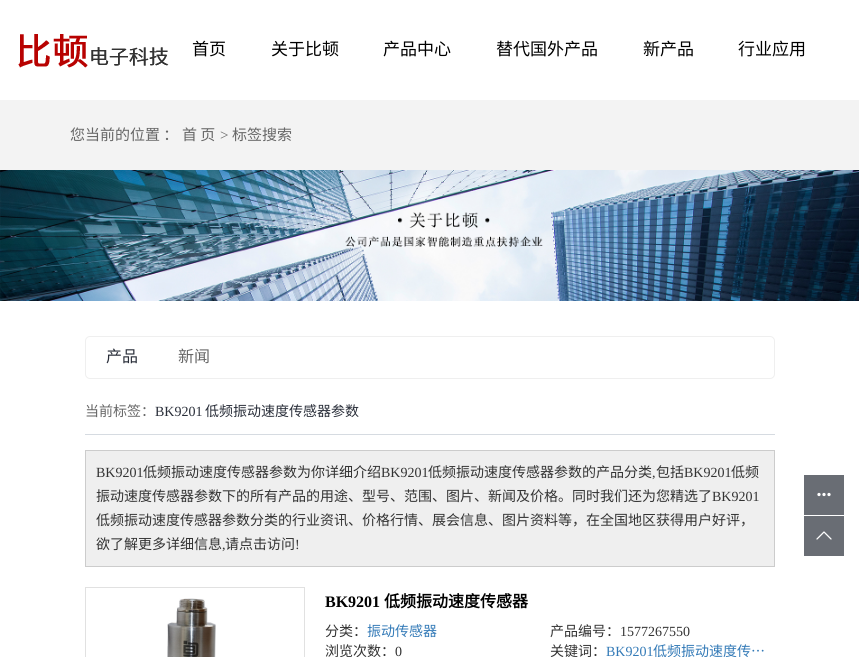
#include <cairo.h>
#include <math.h>
#include <stddef.h>


static void round_rect(cairo_t *cr, double x, double y, double w, double h, double r) {
    cairo_new_sub_path(cr);
    cairo_arc(cr, x + w - r, y + h - r, r, 0, M_PI / 2);
    cairo_arc(cr, x + r, y + h - r, r, M_PI / 2, M_PI);
    cairo_arc(cr, x + r, y + r, r, M_PI, 1.5 * M_PI);
    cairo_arc(cr, x + w - r, y + r, r, 1.5 * M_PI, 2 * M_PI);
    cairo_close_path(cr);
}

static void picture(cairo_t *cr, const char *path, double x, double y, double w, double h) {
    cairo_surface_t *image = cairo_image_surface_create_from_png(path);
    cairo_save(cr);
    cairo_set_source_surface(cr, image, x, y);
    cairo_rectangle(cr, x, y, w, h);
    cairo_fill(cr);
    cairo_restore(cr);
    cairo_surface_destroy(image);
}

int main(void) {
    cairo_surface_t *surface = cairo_image_surface_create(CAIRO_FORMAT_RGB24, 859, 657);
    cairo_t *cr = cairo_create(surface);
    cairo_font_options_t *options = cairo_font_options_create();
    cairo_font_options_set_hint_metrics(options, CAIRO_HINT_METRICS_OFF);
    cairo_font_options_set_hint_style(options, CAIRO_HINT_STYLE_NONE);
    cairo_set_font_options(cr, options);
    cairo_set_miter_limit(cr, 4);
    cairo_set_source_rgb(cr, 1, 1, 1);
    cairo_paint(cr);
    picture(cr, "img1.png", 18, 34, 151, 34);
    cairo_select_font_face(cr, "Noto Sans CJK SC", CAIRO_FONT_SLANT_NORMAL, CAIRO_FONT_WEIGHT_NORMAL);
    cairo_set_font_size(cr, 17);
    cairo_set_source_rgb(cr, 0, 0, 0);
    cairo_move_to(cr, 192, 55);
    cairo_show_text(cr, "首页");
    cairo_move_to(cr, 271, 55);
    cairo_show_text(cr, "关于比顿");
    cairo_move_to(cr, 383, 55);
    cairo_show_text(cr, "产品中心");
    cairo_move_to(cr, 496, 55);
    cairo_show_text(cr, "替代国外产品");
    cairo_move_to(cr, 643, 55);
    cairo_show_text(cr, "新产品");
    cairo_move_to(cr, 738, 55);
    cairo_show_text(cr, "行业应用");
    cairo_set_source_rgb(cr, 0.953, 0.953, 0.953);
    cairo_rectangle(cr, 0, 100, 859, 70);
    cairo_fill(cr);
    cairo_set_font_size(cr, 15);
    cairo_set_source_rgb(cr, 0.4, 0.4, 0.4);
    cairo_move_to(cr, 70, 140);
    cairo_show_text(cr, "您当前的位置 ：");
    cairo_move_to(cr, 182, 140);
    cairo_show_text(cr, "首 页");
    cairo_select_font_face(cr, "Liberation Serif", CAIRO_FONT_SLANT_NORMAL, CAIRO_FONT_WEIGHT_NORMAL);
    cairo_move_to(cr, 220, 140);
    cairo_show_text(cr, ">");
    cairo_select_font_face(cr, "Noto Sans CJK SC", CAIRO_FONT_SLANT_NORMAL, CAIRO_FONT_WEIGHT_NORMAL);
    cairo_move_to(cr, 232, 140);
    cairo_show_text(cr, "标签搜索");
    picture(cr, "img2.png", 0, 170, 859, 131);
    round_rect(cr, 85.5, 336.5, 689, 42, 4.5);
    cairo_set_source_rgb(cr, 0.937, 0.937, 0.937);
    cairo_set_line_width(cr, 1);
    cairo_stroke(cr);
    cairo_set_font_size(cr, 16);
    cairo_set_source_rgb(cr, 0.161, 0.18, 0.224);
    cairo_move_to(cr, 106, 362);
    cairo_show_text(cr, "产品");
    cairo_set_source_rgb(cr, 0.4, 0.4, 0.4);
    cairo_move_to(cr, 178, 362);
    cairo_show_text(cr, "新闻");
    cairo_set_source_rgb(cr, 0.839, 0.859, 0.882);
    cairo_rectangle(cr, 85, 434, 690, 1);
    cairo_fill(cr);
    cairo_set_font_size(cr, 14);
    cairo_set_source_rgb(cr, 0.4, 0.4, 0.4);
    cairo_move_to(cr, 85, 416);
    cairo_show_text(cr, "当前标签：");
    cairo_select_font_face(cr, "Liberation Serif", CAIRO_FONT_SLANT_NORMAL, CAIRO_FONT_WEIGHT_NORMAL);
    cairo_set_source_rgb(cr, 0.161, 0.18, 0.224);
    cairo_move_to(cr, 155, 416);
    cairo_show_text(cr, "BK9201");
    cairo_select_font_face(cr, "Noto Sans CJK SC", CAIRO_FONT_SLANT_NORMAL, CAIRO_FONT_WEIGHT_NORMAL);
    cairo_move_to(cr, 205, 416);
    cairo_show_text(cr, "低频振动速度传感器参数");
    cairo_set_source_rgb(cr, 0.937, 0.937, 0.937);
    cairo_rectangle(cr, 85.5, 450.5, 689, 116);
    cairo_fill_preserve(cr);
    cairo_set_source_rgb(cr, 0.8, 0.8, 0.8);
    cairo_stroke(cr);
    cairo_select_font_face(cr, "Liberation Serif", CAIRO_FONT_SLANT_NORMAL, CAIRO_FONT_WEIGHT_NORMAL);
    cairo_set_source_rgb(cr, 0.2, 0.2, 0.2);
    cairo_move_to(cr, 96, 477);
    cairo_show_text(cr, "BK9201");
    cairo_select_font_face(cr, "Noto Sans CJK SC", CAIRO_FONT_SLANT_NORMAL, CAIRO_FONT_WEIGHT_NORMAL);
    cairo_move_to(cr, 143, 477);
    cairo_show_text(cr, "低频振动速度传感器参数为你详细介绍");
    cairo_select_font_face(cr, "Liberation Serif", CAIRO_FONT_SLANT_NORMAL, CAIRO_FONT_WEIGHT_NORMAL);
    cairo_move_to(cr, 381, 477);
    cairo_show_text(cr, "BK9201");
    cairo_select_font_face(cr, "Noto Sans CJK SC", CAIRO_FONT_SLANT_NORMAL, CAIRO_FONT_WEIGHT_NORMAL);
    cairo_move_to(cr, 428, 477);
    cairo_show_text(cr, "低频振动速度传感器参数的产品分类");
    cairo_select_font_face(cr, "Liberation Serif", CAIRO_FONT_SLANT_NORMAL, CAIRO_FONT_WEIGHT_NORMAL);
    cairo_move_to(cr, 652, 477);
    cairo_show_text(cr, ",");
    cairo_select_font_face(cr, "Noto Sans CJK SC", CAIRO_FONT_SLANT_NORMAL, CAIRO_FONT_WEIGHT_NORMAL);
    cairo_move_to(cr, 656, 477);
    cairo_show_text(cr, "包括");
    cairo_select_font_face(cr, "Liberation Serif", CAIRO_FONT_SLANT_NORMAL, CAIRO_FONT_WEIGHT_NORMAL);
    cairo_move_to(cr, 684, 477);
    cairo_show_text(cr, "BK9201");
    cairo_select_font_face(cr, "Noto Sans CJK SC", CAIRO_FONT_SLANT_NORMAL, CAIRO_FONT_WEIGHT_NORMAL);
    cairo_move_to(cr, 731, 477);
    cairo_show_text(cr, "低频");
    cairo_move_to(cr, 96, 501);
    cairo_show_text(cr, "振动速度传感器参数下的所有产品的用途、型号、范围、图片、新闻及价格。同时我们还为您精选了");
    cairo_select_font_face(cr, "Liberation Serif", CAIRO_FONT_SLANT_NORMAL, CAIRO_FONT_WEIGHT_NORMAL);
    cairo_move_to(cr, 712, 501);
    cairo_show_text(cr, "BK9201");
    cairo_select_font_face(cr, "Noto Sans CJK SC", CAIRO_FONT_SLANT_NORMAL, CAIRO_FONT_WEIGHT_NORMAL);
    cairo_move_to(cr, 96, 525);
    cairo_show_text(cr, "低频振动速度传感器参数分类的行业资讯、价格行情、展会信息、图片资料等，在全国地区获得用户好评，");
    cairo_move_to(cr, 96, 549);
    cairo_show_text(cr, "欲了解更多详细信息");
    cairo_select_font_face(cr, "Liberation Serif", CAIRO_FONT_SLANT_NORMAL, CAIRO_FONT_WEIGHT_NORMAL);
    cairo_move_to(cr, 222, 549);
    cairo_show_text(cr, ",");
    cairo_select_font_face(cr, "Noto Sans CJK SC", CAIRO_FONT_SLANT_NORMAL, CAIRO_FONT_WEIGHT_NORMAL);
    cairo_move_to(cr, 225, 549);
    cairo_show_text(cr, "请点击访问");
    cairo_select_font_face(cr, "Liberation Serif", CAIRO_FONT_SLANT_NORMAL, CAIRO_FONT_WEIGHT_NORMAL);
    cairo_move_to(cr, 295, 549);
    cairo_show_text(cr, "!");
    cairo_rectangle(cr, 85.5, 587.5, 219, 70);
    cairo_set_source_rgb(cr, 0.882, 0.882, 0.882);
    cairo_stroke(cr);
    picture(cr, "img3.png", 167, 598, 49, 59);
    cairo_select_font_face(cr, "Liberation Serif", CAIRO_FONT_SLANT_NORMAL, CAIRO_FONT_WEIGHT_BOLD);
    cairo_set_font_size(cr, 16);
    cairo_set_source_rgb(cr, 0, 0, 0);
    cairo_move_to(cr, 325, 607);
    cairo_show_text(cr, "BK9201");
    cairo_select_font_face(cr, "Noto Sans CJK SC", CAIRO_FONT_SLANT_NORMAL, CAIRO_FONT_WEIGHT_BOLD);
    cairo_move_to(cr, 384, 607);
    cairo_show_text(cr, "低频振动速度传感器");
    cairo_select_font_face(cr, "Noto Sans CJK SC", CAIRO_FONT_SLANT_NORMAL, CAIRO_FONT_WEIGHT_NORMAL);
    cairo_set_font_size(cr, 14);
    cairo_set_source_rgb(cr, 0.2, 0.2, 0.2);
    cairo_move_to(cr, 325, 636);
    cairo_show_text(cr, "分类：");
    cairo_set_source_rgb(cr, 0.2, 0.478, 0.718);
    cairo_move_to(cr, 367, 636);
    cairo_show_text(cr, "振动传感器");
    cairo_set_source_rgb(cr, 0.2, 0.2, 0.2);
    cairo_move_to(cr, 550, 636);
    cairo_show_text(cr, "产品编号：");
    cairo_select_font_face(cr, "Liberation Serif", CAIRO_FONT_SLANT_NORMAL, CAIRO_FONT_WEIGHT_NORMAL);
    cairo_move_to(cr, 620, 636);
    cairo_show_text(cr, "1577267550");
    cairo_select_font_face(cr, "Noto Sans CJK SC", CAIRO_FONT_SLANT_NORMAL, CAIRO_FONT_WEIGHT_NORMAL);
    cairo_move_to(cr, 325, 656);
    cairo_show_text(cr, "浏览次数：");
    cairo_select_font_face(cr, "Liberation Serif", CAIRO_FONT_SLANT_NORMAL, CAIRO_FONT_WEIGHT_NORMAL);
    cairo_move_to(cr, 395, 656);
    cairo_show_text(cr, "0");
    cairo_select_font_face(cr, "Noto Sans CJK SC", CAIRO_FONT_SLANT_NORMAL, CAIRO_FONT_WEIGHT_NORMAL);
    cairo_move_to(cr, 550, 656);
    cairo_show_text(cr, "关键词：");
    cairo_select_font_face(cr, "Liberation Serif", CAIRO_FONT_SLANT_NORMAL, CAIRO_FONT_WEIGHT_NORMAL);
    cairo_set_source_rgb(cr, 0.2, 0.478, 0.718);
    cairo_move_to(cr, 606, 656);
    cairo_show_text(cr, "BK9201");
    cairo_select_font_face(cr, "Noto Sans CJK SC", CAIRO_FONT_SLANT_NORMAL, CAIRO_FONT_WEIGHT_NORMAL);
    cairo_move_to(cr, 653, 656);
    cairo_show_text(cr, "低频振动速度传…");
    cairo_set_source_rgb(cr, 0.412, 0.427, 0.455);
    cairo_rectangle(cr, 804, 475, 40, 40);
    cairo_fill(cr);
    picture(cr, "img4.png", 817, 492, 14, 5);
    cairo_rectangle(cr, 804, 516, 40, 40);
    cairo_fill(cr);
    picture(cr, "img5.png", 816, 531, 16, 9);
    cairo_surface_write_to_png(surface, "page.png");
    cairo_font_options_destroy(options);
    cairo_destroy(cr);
    cairo_surface_destroy(surface);
    return 0;
}
